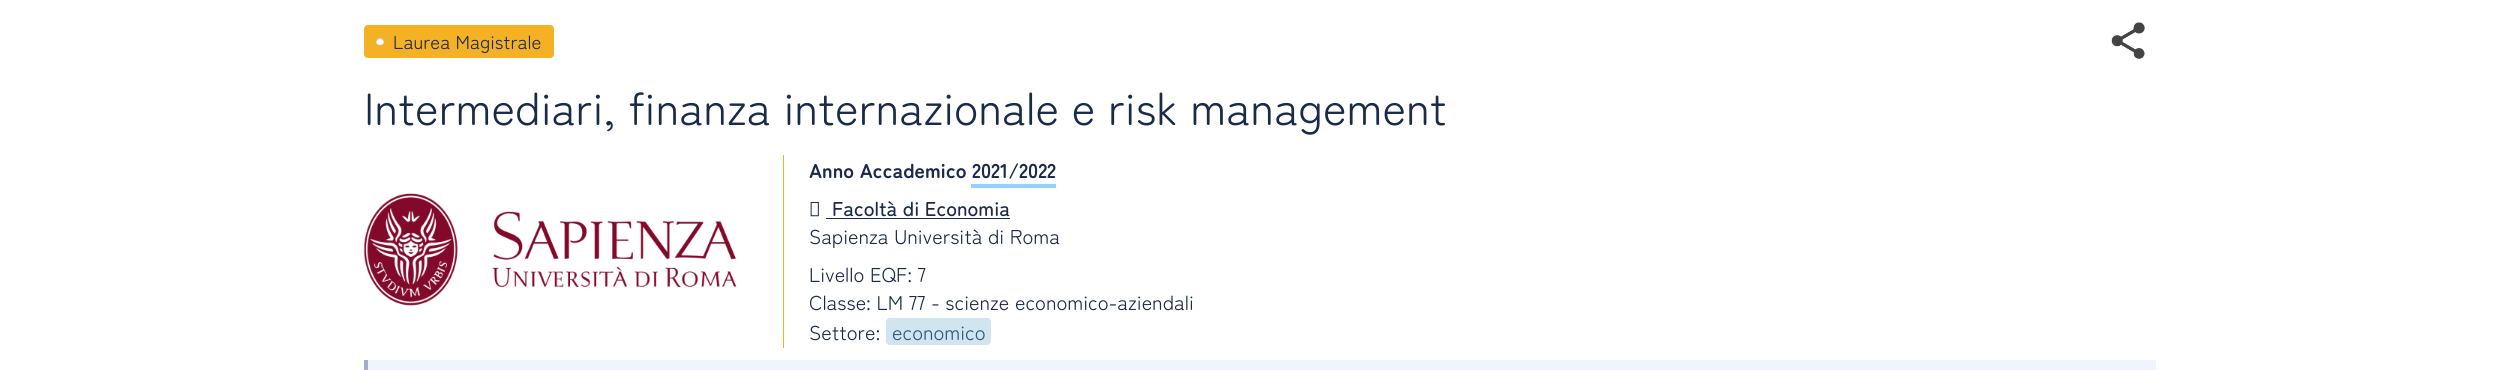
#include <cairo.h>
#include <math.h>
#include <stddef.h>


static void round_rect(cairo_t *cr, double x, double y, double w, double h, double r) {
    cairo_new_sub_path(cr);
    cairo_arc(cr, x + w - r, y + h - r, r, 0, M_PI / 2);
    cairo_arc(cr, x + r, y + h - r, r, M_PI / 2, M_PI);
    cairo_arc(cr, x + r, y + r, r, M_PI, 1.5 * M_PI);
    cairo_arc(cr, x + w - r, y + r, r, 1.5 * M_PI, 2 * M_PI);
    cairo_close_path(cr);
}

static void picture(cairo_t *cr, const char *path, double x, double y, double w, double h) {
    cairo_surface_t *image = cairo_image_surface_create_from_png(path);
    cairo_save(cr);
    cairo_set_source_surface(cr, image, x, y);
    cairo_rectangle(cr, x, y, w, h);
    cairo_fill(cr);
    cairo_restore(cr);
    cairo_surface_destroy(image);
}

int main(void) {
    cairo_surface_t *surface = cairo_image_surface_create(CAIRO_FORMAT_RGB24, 2519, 370);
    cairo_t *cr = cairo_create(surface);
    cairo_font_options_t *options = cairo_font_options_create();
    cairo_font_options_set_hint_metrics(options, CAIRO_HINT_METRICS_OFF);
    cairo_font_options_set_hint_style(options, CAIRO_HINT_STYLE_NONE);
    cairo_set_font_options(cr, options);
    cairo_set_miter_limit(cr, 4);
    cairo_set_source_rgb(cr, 1, 1, 1);
    cairo_paint(cr);
    cairo_set_source_rgb(cr, 0.953, 0.694, 0.137);
    round_rect(cr, 364, 25, 190, 33, 4);
    cairo_fill(cr);
    cairo_set_source_rgb(cr, 1, 1, 1);
    round_rect(cr, 376, 38, 8, 7, 3.5);
    cairo_fill(cr);
    cairo_set_source_rgba(cr, 0, 0, 0, 0.25);
    cairo_new_path(cr);
    cairo_move_to(cr, 380, 39);
    cairo_curve_to(cr, 382.5, 39, 384, 41, 383.5, 43);
    cairo_curve_to(cr, 386.5, 36.5, 373.5, 36.5, 376.5, 43);
    cairo_curve_to(cr, 376, 41, 377.5, 39, 380, 39);
    cairo_close_path(cr);
    cairo_fill(cr);
    cairo_select_font_face(cr, "Zen Maru Gothic", CAIRO_FONT_SLANT_NORMAL, CAIRO_FONT_WEIGHT_NORMAL);
    cairo_set_font_size(cr, 18.75);
    cairo_set_source_rgb(cr, 0.106, 0.165, 0.29);
    cairo_move_to(cr, 393, 49);
    cairo_show_text(cr, "Laurea Magistrale");
    picture(cr, "img1.png", 2111, 22, 34, 37);
    cairo_set_font_size(cr, 45);
    cairo_move_to(cr, 364, 125);
    cairo_show_text(cr, "Intermediari, finanza internazionale e risk management");
    picture(cr, "img2.png", 363, 193, 374, 113);
    cairo_set_source_rgb(cr, 0.953, 0.694, 0.137);
    cairo_rectangle(cr, 783, 155, 1, 193);
    cairo_fill(cr);
    cairo_select_font_face(cr, "Zen Maru Gothic", CAIRO_FONT_SLANT_NORMAL, CAIRO_FONT_WEIGHT_BOLD);
    cairo_set_font_size(cr, 20);
    cairo_set_source_rgb(cr, 0.106, 0.165, 0.29);
    cairo_move_to(cr, 809, 178);
    cairo_show_text(cr, "Anno Accademico 2021/2022");
    cairo_set_source_rgb(cr, 0.569, 0.82, 1);
    cairo_rectangle(cr, 971, 184, 85, 4);
    cairo_fill(cr);
    picture(cr, "img3.png", 810, 201, 9, 16);
    cairo_select_font_face(cr, "Zen Maru Gothic Medium", CAIRO_FONT_SLANT_NORMAL, CAIRO_FONT_WEIGHT_NORMAL);
    cairo_set_source_rgb(cr, 0.106, 0.165, 0.29);
    cairo_move_to(cr, 832, 216);
    cairo_show_text(cr, "Facoltà di Economia");
    cairo_rectangle(cr, 826, 218, 184, 1);
    cairo_fill(cr);
    cairo_select_font_face(cr, "Zen Maru Gothic", CAIRO_FONT_SLANT_NORMAL, CAIRO_FONT_WEIGHT_NORMAL);
    cairo_move_to(cr, 809, 244);
    cairo_show_text(cr, "Sapienza Università di Roma");
    cairo_move_to(cr, 809, 282);
    cairo_show_text(cr, "Livello EQF: 7");
    cairo_move_to(cr, 809, 310);
    cairo_show_text(cr, "Classe: LM 77 - scienze economico-aziendali");
    cairo_move_to(cr, 809, 340);
    cairo_show_text(cr, "Settore:");
    cairo_set_source_rgb(cr, 0.82, 0.898, 0.945);
    round_rect(cr, 886, 318, 105, 27, 4);
    cairo_fill(cr);
    cairo_set_source_rgb(cr, 0.173, 0.341, 0.467);
    cairo_move_to(cr, 892, 340);
    cairo_show_text(cr, "economico");
    cairo_set_source_rgb(cr, 0.941, 0.957, 0.988);
    cairo_rectangle(cr, 368, 360, 1788, 10);
    cairo_fill(cr);
    cairo_set_source_rgb(cr, 0.631, 0.686, 0.812);
    cairo_rectangle(cr, 364, 360, 4, 10);
    cairo_fill(cr);
    cairo_surface_write_to_png(surface, "page.png");
    cairo_font_options_destroy(options);
    cairo_destroy(cr);
    cairo_surface_destroy(surface);
    return 0;
}
